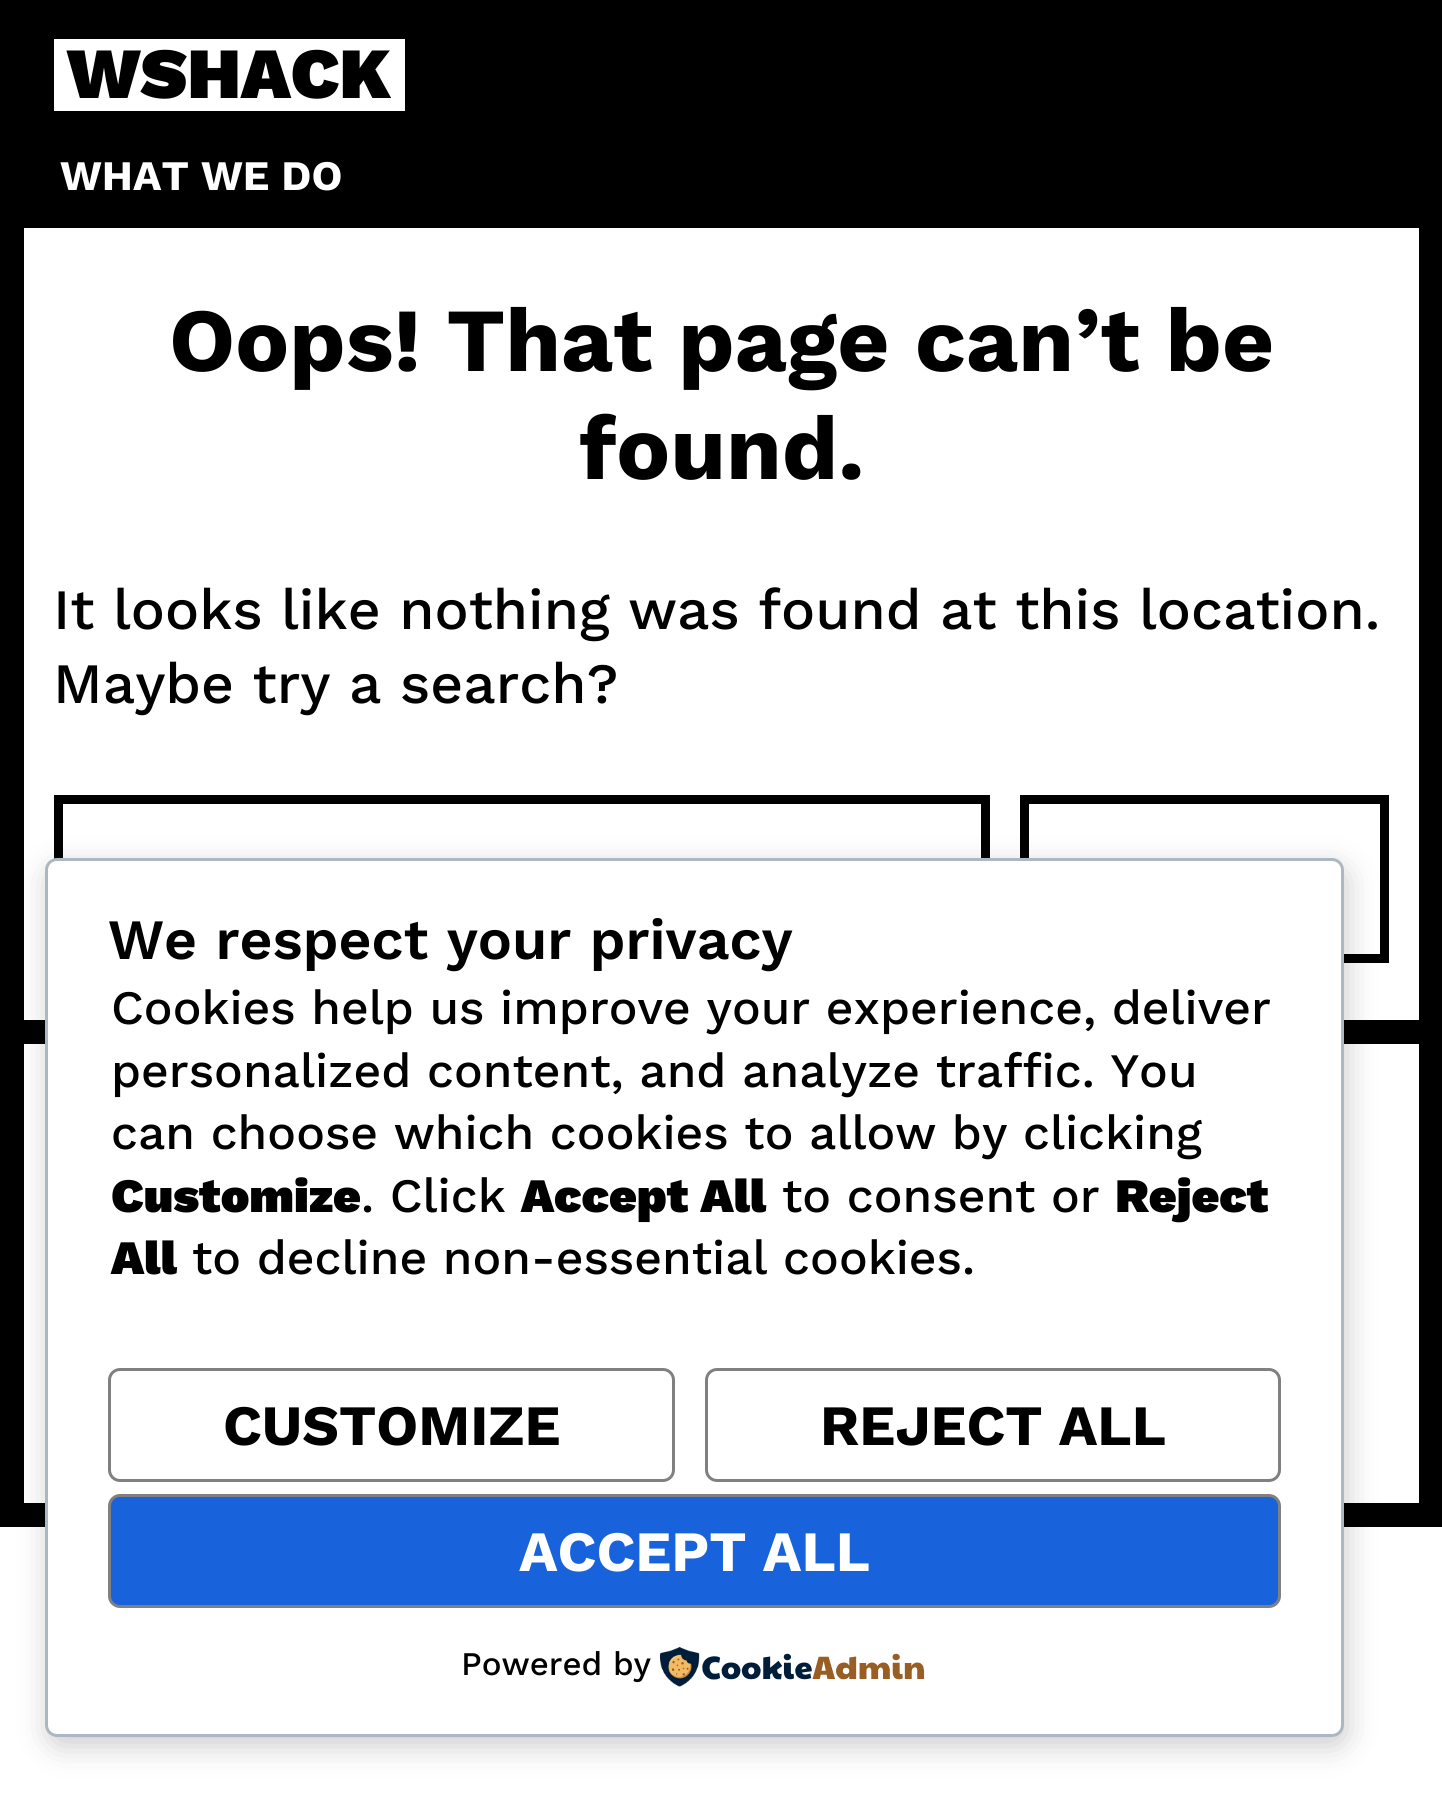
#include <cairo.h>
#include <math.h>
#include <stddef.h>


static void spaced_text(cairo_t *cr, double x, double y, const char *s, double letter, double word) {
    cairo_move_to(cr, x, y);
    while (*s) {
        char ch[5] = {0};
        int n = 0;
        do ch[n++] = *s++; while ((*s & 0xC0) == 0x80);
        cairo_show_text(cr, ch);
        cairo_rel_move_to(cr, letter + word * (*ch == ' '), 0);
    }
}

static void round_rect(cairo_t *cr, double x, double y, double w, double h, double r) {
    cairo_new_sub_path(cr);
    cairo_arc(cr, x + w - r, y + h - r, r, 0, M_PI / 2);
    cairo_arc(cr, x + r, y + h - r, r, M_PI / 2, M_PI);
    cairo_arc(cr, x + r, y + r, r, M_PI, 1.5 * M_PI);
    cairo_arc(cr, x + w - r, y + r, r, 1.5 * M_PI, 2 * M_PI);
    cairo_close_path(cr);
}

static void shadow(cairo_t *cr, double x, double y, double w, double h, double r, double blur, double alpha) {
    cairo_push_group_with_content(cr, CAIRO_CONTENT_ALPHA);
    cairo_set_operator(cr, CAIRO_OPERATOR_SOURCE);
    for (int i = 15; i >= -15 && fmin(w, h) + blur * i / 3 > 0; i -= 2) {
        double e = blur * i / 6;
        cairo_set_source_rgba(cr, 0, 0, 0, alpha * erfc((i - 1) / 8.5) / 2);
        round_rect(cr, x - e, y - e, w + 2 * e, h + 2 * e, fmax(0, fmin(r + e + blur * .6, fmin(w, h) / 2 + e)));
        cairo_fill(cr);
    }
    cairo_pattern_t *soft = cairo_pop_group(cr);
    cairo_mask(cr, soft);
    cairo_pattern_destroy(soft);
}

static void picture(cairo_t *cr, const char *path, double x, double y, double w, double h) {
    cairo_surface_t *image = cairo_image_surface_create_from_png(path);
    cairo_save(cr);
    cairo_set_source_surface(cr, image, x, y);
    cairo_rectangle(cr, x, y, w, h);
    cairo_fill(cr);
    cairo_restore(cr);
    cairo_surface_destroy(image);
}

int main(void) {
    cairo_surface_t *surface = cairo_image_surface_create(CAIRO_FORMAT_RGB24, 1442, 1797);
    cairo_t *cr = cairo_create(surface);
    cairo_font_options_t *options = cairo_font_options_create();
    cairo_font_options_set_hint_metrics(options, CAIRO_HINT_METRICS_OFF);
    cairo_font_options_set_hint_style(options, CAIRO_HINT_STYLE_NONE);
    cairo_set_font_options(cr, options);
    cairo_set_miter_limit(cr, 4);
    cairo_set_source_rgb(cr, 1, 1, 1);
    cairo_paint(cr);
    cairo_rectangle(cr, 12, 12, 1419, 1503);
    cairo_set_source_rgb(cr, 0, 0, 0);
    cairo_set_line_width(cr, 24);
    cairo_stroke(cr);
    cairo_rectangle(cr, 24, 24, 1395, 204);
    cairo_fill(cr);
    cairo_set_source_rgb(cr, 1, 1, 1);
    cairo_rectangle(cr, 54, 39, 351, 72);
    cairo_fill(cr);
    cairo_select_font_face(cr, "Work Sans Black", CAIRO_FONT_SLANT_NORMAL, CAIRO_FONT_WEIGHT_NORMAL);
    cairo_set_font_size(cr, 72);
    cairo_set_source_rgb(cr, 0, 0, 0);
    cairo_move_to(cr, 67, 98);
    cairo_show_text(cr, "WSHACK");
    cairo_select_font_face(cr, "Work Sans", CAIRO_FONT_SLANT_NORMAL, CAIRO_FONT_WEIGHT_BOLD);
    cairo_set_font_size(cr, 42);
    cairo_set_source_rgb(cr, 1, 1, 1);
    cairo_move_to(cr, 60, 190);
    cairo_show_text(cr, "WHAT WE DO");
    cairo_set_font_size(cr, 90);
    cairo_set_source_rgb(cr, 0, 0, 0);
    cairo_move_to(cr, 169, 371);
    cairo_show_text(cr, "Oops! That page can’t be");
    cairo_move_to(cr, 579, 479);
    cairo_show_text(cr, "found.");
    cairo_select_font_face(cr, "Work Sans Medium", CAIRO_FONT_SLANT_NORMAL, CAIRO_FONT_WEIGHT_NORMAL);
    cairo_set_font_size(cr, 57);
    cairo_move_to(cr, 53, 629);
    cairo_show_text(cr, "It looks like nothing was found at this location.");
    cairo_move_to(cr, 53, 703);
    cairo_show_text(cr, "Maybe try a search?");
    cairo_rectangle(cr, 58.5, 799.5, 927, 159);
    cairo_set_line_width(cr, 9);
    cairo_stroke(cr);
    cairo_rectangle(cr, 1024.5, 799.5, 360, 159);
    cairo_stroke(cr);
    cairo_rectangle(cr, 24, 1020, 1395, 24);
    cairo_fill(cr);
    cairo_set_source_rgb(cr, 0, 0, 0);
    shadow(cr, 48, 867, 1299, 879, 12, 15, 0.2);
    cairo_set_source_rgb(cr, 1, 1, 1);
    round_rect(cr, 46.5, 859.5, 1296, 876, 10.5);
    cairo_fill_preserve(cr);
    cairo_set_source_rgb(cr, 0.671, 0.722, 0.765);
    cairo_set_line_width(cr, 3);
    cairo_stroke(cr);
    cairo_select_font_face(cr, "Work Sans SemiBold", CAIRO_FONT_SLANT_NORMAL, CAIRO_FONT_WEIGHT_NORMAL);
    cairo_set_source_rgb(cr, 0, 0, 0);
    spaced_text(cr, 108, 959, "We respect your privacy", 0, 1);
    cairo_select_font_face(cr, "Work Sans Medium", CAIRO_FONT_SLANT_NORMAL, CAIRO_FONT_WEIGHT_NORMAL);
    cairo_set_font_size(cr, 48);
    cairo_move_to(cr, 111, 1024);
    cairo_show_text(cr, "Cookies help us improve your experience, deliver");
    cairo_move_to(cr, 111, 1087);
    cairo_show_text(cr, "personalized content, and analyze traffic. You");
    cairo_move_to(cr, 111, 1149);
    cairo_show_text(cr, "can choose which cookies to allow by clicking");
    cairo_select_font_face(cr, "Work Sans Black", CAIRO_FONT_SLANT_NORMAL, CAIRO_FONT_WEIGHT_NORMAL);
    cairo_move_to(cr, 111, 1212);
    cairo_show_text(cr, "Customize");
    cairo_select_font_face(cr, "Work Sans Medium", CAIRO_FONT_SLANT_NORMAL, CAIRO_FONT_WEIGHT_NORMAL);
    cairo_move_to(cr, 361, 1212);
    cairo_show_text(cr, ". Click");
    cairo_select_font_face(cr, "Work Sans Black", CAIRO_FONT_SLANT_NORMAL, CAIRO_FONT_WEIGHT_NORMAL);
    cairo_move_to(cr, 521, 1212);
    cairo_show_text(cr, "Accept All");
    cairo_select_font_face(cr, "Work Sans Medium", CAIRO_FONT_SLANT_NORMAL, CAIRO_FONT_WEIGHT_NORMAL);
    cairo_move_to(cr, 782, 1212);
    cairo_show_text(cr, "to consent or");
    cairo_select_font_face(cr, "Work Sans Black", CAIRO_FONT_SLANT_NORMAL, CAIRO_FONT_WEIGHT_NORMAL);
    cairo_move_to(cr, 1115, 1212);
    cairo_show_text(cr, "Reject");
    cairo_move_to(cr, 111, 1274);
    cairo_show_text(cr, "All");
    cairo_select_font_face(cr, "Work Sans Medium", CAIRO_FONT_SLANT_NORMAL, CAIRO_FONT_WEIGHT_NORMAL);
    cairo_move_to(cr, 192, 1274);
    cairo_show_text(cr, "to decline non-essential cookies.");
    round_rect(cr, 109.5, 1369.5, 564, 111, 10.5);
    cairo_set_source_rgb(cr, 0.502, 0.502, 0.502);
    cairo_stroke(cr);
    cairo_select_font_face(cr, "Work Sans", CAIRO_FONT_SLANT_NORMAL, CAIRO_FONT_WEIGHT_BOLD);
    cairo_set_font_size(cr, 57);
    cairo_set_source_rgb(cr, 0, 0, 0);
    cairo_move_to(cr, 223, 1445);
    cairo_show_text(cr, "CUSTOMIZE");
    round_rect(cr, 706.5, 1369.5, 573, 111, 10.5);
    cairo_set_source_rgb(cr, 0.502, 0.502, 0.502);
    cairo_stroke(cr);
    cairo_set_source_rgb(cr, 0, 0, 0);
    cairo_move_to(cr, 820, 1445);
    cairo_show_text(cr, "REJECT ALL");
    cairo_set_source_rgb(cr, 0.094, 0.388, 0.863);
    round_rect(cr, 109.5, 1495.5, 1170, 111, 10.5);
    cairo_fill_preserve(cr);
    cairo_set_source_rgb(cr, 0.502, 0.502, 0.502);
    cairo_stroke(cr);
    cairo_set_source_rgb(cr, 1, 1, 1);
    cairo_move_to(cr, 519, 1571);
    cairo_show_text(cr, "ACCEPT ALL");
    cairo_select_font_face(cr, "Work Sans Medium", CAIRO_FONT_SLANT_NORMAL, CAIRO_FONT_WEIGHT_NORMAL);
    cairo_set_font_size(cr, 33);
    cairo_set_source_rgb(cr, 0, 0, 0);
    cairo_move_to(cr, 461, 1675);
    cairo_show_text(cr, "Powered by");
    picture(cr, "img1.png", 660, 1647, 265, 40);
    cairo_surface_write_to_png(surface, "page.png");
    cairo_font_options_destroy(options);
    cairo_destroy(cr);
    cairo_surface_destroy(surface);
    return 0;
}
